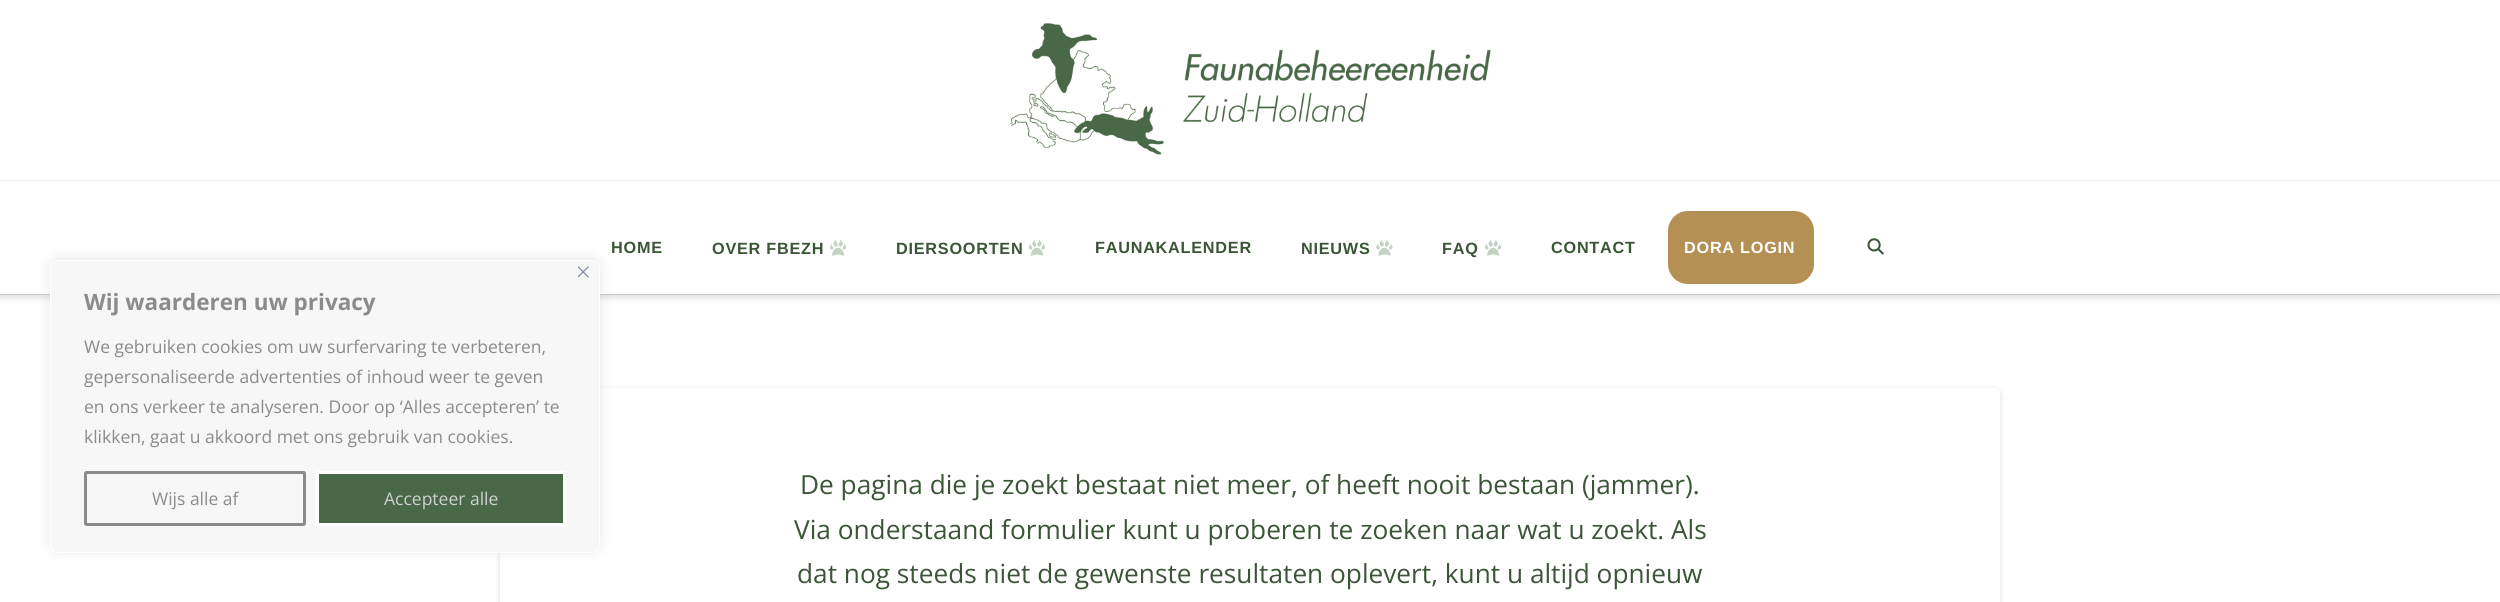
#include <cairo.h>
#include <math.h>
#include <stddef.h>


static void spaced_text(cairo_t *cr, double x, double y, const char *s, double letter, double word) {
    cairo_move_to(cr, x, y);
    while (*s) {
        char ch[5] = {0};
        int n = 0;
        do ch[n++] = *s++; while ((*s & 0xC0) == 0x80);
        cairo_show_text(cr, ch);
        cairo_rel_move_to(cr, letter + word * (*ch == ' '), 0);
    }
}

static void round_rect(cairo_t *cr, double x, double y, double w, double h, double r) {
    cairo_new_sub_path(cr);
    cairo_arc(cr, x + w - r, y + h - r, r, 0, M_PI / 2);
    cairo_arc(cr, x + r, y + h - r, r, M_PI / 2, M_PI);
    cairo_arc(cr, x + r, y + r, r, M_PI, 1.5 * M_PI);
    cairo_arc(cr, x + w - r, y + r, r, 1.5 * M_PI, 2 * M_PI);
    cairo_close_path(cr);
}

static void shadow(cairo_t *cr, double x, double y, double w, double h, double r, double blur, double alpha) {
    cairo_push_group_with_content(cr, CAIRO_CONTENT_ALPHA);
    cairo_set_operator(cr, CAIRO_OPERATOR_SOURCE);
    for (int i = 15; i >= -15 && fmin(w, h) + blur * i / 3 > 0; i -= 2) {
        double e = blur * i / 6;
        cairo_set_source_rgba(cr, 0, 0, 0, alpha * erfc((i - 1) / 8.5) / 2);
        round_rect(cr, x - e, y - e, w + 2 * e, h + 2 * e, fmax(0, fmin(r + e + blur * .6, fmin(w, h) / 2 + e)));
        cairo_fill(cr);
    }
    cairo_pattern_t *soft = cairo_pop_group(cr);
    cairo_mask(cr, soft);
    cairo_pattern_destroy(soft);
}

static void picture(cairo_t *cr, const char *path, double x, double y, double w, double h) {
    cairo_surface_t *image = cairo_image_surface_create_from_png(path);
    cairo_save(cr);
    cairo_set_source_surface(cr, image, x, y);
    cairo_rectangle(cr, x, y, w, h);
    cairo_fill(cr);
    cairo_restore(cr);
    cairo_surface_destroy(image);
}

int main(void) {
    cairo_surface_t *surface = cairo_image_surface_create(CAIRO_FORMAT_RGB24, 2500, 602);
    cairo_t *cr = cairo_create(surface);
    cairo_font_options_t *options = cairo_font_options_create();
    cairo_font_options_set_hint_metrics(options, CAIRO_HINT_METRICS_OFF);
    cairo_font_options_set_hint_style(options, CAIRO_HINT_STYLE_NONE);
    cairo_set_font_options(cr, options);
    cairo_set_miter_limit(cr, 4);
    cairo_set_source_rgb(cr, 1, 1, 1);
    cairo_paint(cr);
    cairo_set_source_rgb(cr, 0.949, 0.949, 0.949);
    cairo_rectangle(cr, 0, 180, 2500, 1);
    cairo_fill(cr);
    cairo_set_source_rgb(cr, 0, 0, 0);
    shadow(cr, 0, 184, 2500, 114, 0, 3, 0.13);
    cairo_set_source_rgb(cr, 1, 1, 1);
    cairo_rectangle(cr, 0, 181, 2500, 113);
    cairo_fill(cr);
    cairo_set_source_rgb(cr, 0.8, 0.8, 0.8);
    cairo_rectangle(cr, 0, 294, 2500, 1);
    cairo_fill(cr);
    cairo_set_source_rgb(cr, 0.675, 0.671, 0.671);
    shadow(cr, 50, 259, 550, 292, 8, 6, 0.3);
    cairo_save(cr);
    cairo_set_fill_rule(cr, CAIRO_FILL_RULE_EVEN_ODD);
    cairo_new_path(cr);
    cairo_move_to(cr, 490, 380);
    cairo_line_to(cr, 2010, 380);
    cairo_line_to(cr, 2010, 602);
    cairo_line_to(cr, 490, 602);
    cairo_close_path(cr);
    cairo_move_to(cr, 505, 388);
    cairo_line_to(cr, 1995, 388);
    cairo_curve_to(cr, 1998, 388, 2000, 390, 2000, 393);
    cairo_line_to(cr, 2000, 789);
    cairo_curve_to(cr, 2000, 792, 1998, 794, 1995, 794);
    cairo_line_to(cr, 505, 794);
    cairo_curve_to(cr, 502, 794, 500, 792, 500, 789);
    cairo_line_to(cr, 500, 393);
    cairo_curve_to(cr, 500, 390, 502, 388, 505, 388);
    cairo_close_path(cr);
    cairo_clip(cr);
    cairo_set_source_rgb(cr, 0, 0, 0);
    shadow(cr, 500, 390, 1500, 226, 5, 3, 0.13);
    cairo_restore(cr);
    cairo_set_source_rgb(cr, 0.965, 0.965, 0.965);
    round_rect(cr, 50.5, 260.5, 549, 292, 7.5);
    cairo_fill_preserve(cr);
    cairo_set_source_rgb(cr, 1, 1, 1);
    cairo_set_line_width(cr, 1);
    cairo_stroke(cr);
    picture(cr, "img1.png", 578, 266, 11, 12);
    cairo_select_font_face(cr, "Open Sans", CAIRO_FONT_SLANT_NORMAL, CAIRO_FONT_WEIGHT_BOLD);
    cairo_set_font_size(cr, 22.5);
    cairo_set_source_rgb(cr, 0.545, 0.545, 0.545);
    cairo_move_to(cr, 84, 310);
    cairo_show_text(cr, "Wij waarderen uw privacy");
    cairo_select_font_face(cr, "Open Sans", CAIRO_FONT_SLANT_NORMAL, CAIRO_FONT_WEIGHT_NORMAL);
    cairo_set_font_size(cr, 17.5);
    cairo_move_to(cr, 84, 353);
    cairo_show_text(cr, "We gebruiken cookies om uw surfervaring te verbeteren,");
    cairo_move_to(cr, 84, 383);
    cairo_show_text(cr, "gepersonaliseerde advertenties of inhoud weer te geven");
    cairo_move_to(cr, 84, 413);
    cairo_show_text(cr, "en ons verkeer te analyseren. Door op ‘Alles accepteren’ te");
    cairo_move_to(cr, 84, 443);
    cairo_show_text(cr, "klikken, gaat u akkoord met ons gebruik van cookies.");
    round_rect(cr, 85.5, 472.5, 219, 52, 1);
    cairo_set_line_width(cr, 3);
    cairo_stroke(cr);
    cairo_move_to(cr, 152, 505);
    cairo_show_text(cr, "Wijs alle af");
    cairo_set_source_rgb(cr, 0.286, 0.408, 0.282);
    round_rect(cr, 317.5, 472.5, 247, 52, 1);
    cairo_fill_preserve(cr);
    cairo_set_source_rgb(cr, 1, 1, 1);
    cairo_stroke(cr);
    cairo_set_source_rgb(cr, 0.816, 0.816, 0.816);
    cairo_move_to(cr, 384, 505);
    cairo_show_text(cr, "Accepteer alle");
    picture(cr, "img2.png", 1009, 23, 482, 132);
    cairo_select_font_face(cr, "Liberation Sans", CAIRO_FONT_SLANT_NORMAL, CAIRO_FONT_WEIGHT_BOLD);
    cairo_set_font_size(cr, 16.25);
    cairo_set_source_rgb(cr, 0.231, 0.337, 0.216);
    spaced_text(cr, 611, 253, "HOME", 0.75, 0);
    spaced_text(cr, 712, 254, "OVER FBEZH", 0.75, 0);
    picture(cr, "img3.png", 830, 239, 17, 17);
    spaced_text(cr, 896, 254, "DIERSOORTEN", 0.75, 0);
    picture(cr, "img4.png", 1028, 239, 17, 17);
    spaced_text(cr, 1095, 253, "FAUNAKALENDER", 0.75, 0);
    spaced_text(cr, 1301, 254, "NIEUWS", 0.75, 0);
    picture(cr, "img5.png", 1376, 239, 17, 17);
    spaced_text(cr, 1442, 254, "FAQ", 0.75, 0);
    picture(cr, "img3.png", 1485, 239, 17, 17);
    spaced_text(cr, 1551, 253, "CONTACT", 0.75, 0);
    cairo_set_source_rgb(cr, 0.71, 0.565, 0.329);
    round_rect(cr, 1668, 211, 146, 73, 20);
    cairo_fill(cr);
    cairo_set_source_rgb(cr, 1, 1, 1);
    spaced_text(cr, 1684, 253, "DORA LOGIN", 0.75, 0);
    picture(cr, "img6.png", 1867, 238, 17, 17);
    cairo_select_font_face(cr, "Open Sans", CAIRO_FONT_SLANT_NORMAL, CAIRO_FONT_WEIGHT_NORMAL);
    cairo_set_font_size(cr, 26.25);
    cairo_set_source_rgb(cr, 0.231, 0.337, 0.216);
    cairo_move_to(cr, 800, 494);
    cairo_show_text(cr, "De pagina die je zoekt bestaat niet meer, of heeft nooit bestaan (jammer).");
    cairo_move_to(cr, 794, 539);
    cairo_show_text(cr, "Via onderstaand formulier kunt u proberen te zoeken naar wat u zoekt. Als");
    cairo_move_to(cr, 797, 583);
    cairo_show_text(cr, "dat nog steeds niet de gewenste resultaten oplevert, kunt u altijd opnieuw");
    cairo_surface_write_to_png(surface, "page.png");
    cairo_font_options_destroy(options);
    cairo_destroy(cr);
    cairo_surface_destroy(surface);
    return 0;
}
